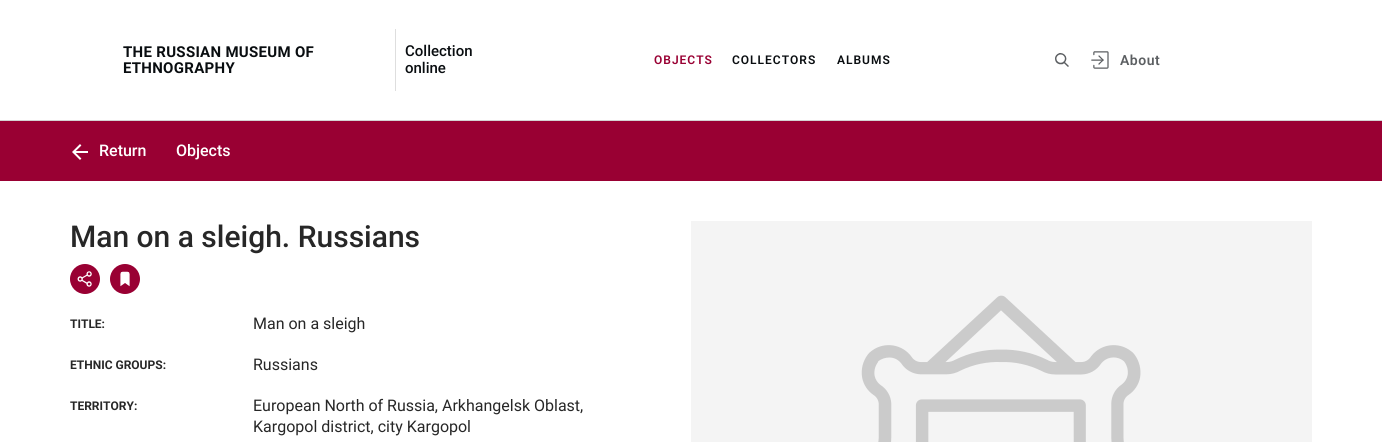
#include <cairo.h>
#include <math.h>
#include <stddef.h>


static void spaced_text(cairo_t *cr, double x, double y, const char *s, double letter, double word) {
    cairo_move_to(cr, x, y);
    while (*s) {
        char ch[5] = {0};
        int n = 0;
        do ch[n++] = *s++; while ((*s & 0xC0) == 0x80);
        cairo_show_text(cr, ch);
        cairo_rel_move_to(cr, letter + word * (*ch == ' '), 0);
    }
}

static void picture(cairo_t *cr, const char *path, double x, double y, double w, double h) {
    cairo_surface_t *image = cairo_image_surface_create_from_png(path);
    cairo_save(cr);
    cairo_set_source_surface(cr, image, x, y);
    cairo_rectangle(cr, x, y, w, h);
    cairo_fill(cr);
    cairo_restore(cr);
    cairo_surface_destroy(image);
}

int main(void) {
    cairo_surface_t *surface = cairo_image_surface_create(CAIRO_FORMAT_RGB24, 1382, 442);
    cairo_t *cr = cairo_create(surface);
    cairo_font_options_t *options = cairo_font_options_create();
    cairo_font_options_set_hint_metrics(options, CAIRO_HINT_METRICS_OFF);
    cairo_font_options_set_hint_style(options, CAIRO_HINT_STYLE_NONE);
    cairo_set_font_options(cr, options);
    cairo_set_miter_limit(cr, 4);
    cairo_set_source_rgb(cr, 1, 1, 1);
    cairo_paint(cr);
    cairo_set_source_rgb(cr, 0.827, 0.827, 0.827);
    cairo_rectangle(cr, 0, 120, 1382, 1);
    cairo_fill(cr);
    cairo_select_font_face(cr, "Roboto", CAIRO_FONT_SLANT_NORMAL, CAIRO_FONT_WEIGHT_BOLD);
    cairo_set_font_size(cr, 15);
    cairo_set_source_rgb(cr, 0.039, 0.051, 0.063);
    spaced_text(cr, 123, 57, "THE RUSSIAN MUSEUM OF", 0.3, 0);
    spaced_text(cr, 123, 73, "ETHNOGRAPHY", 0.3, 0);
    cairo_set_source_rgb(cr, 0.871, 0.871, 0.871);
    cairo_rectangle(cr, 395, 29, 1, 62);
    cairo_fill(cr);
    cairo_select_font_face(cr, "Roboto Medium", CAIRO_FONT_SLANT_NORMAL, CAIRO_FONT_WEIGHT_NORMAL);
    cairo_set_source_rgb(cr, 0.039, 0.051, 0.063);
    cairo_move_to(cr, 405, 56);
    cairo_show_text(cr, "Collection");
    cairo_move_to(cr, 405, 73);
    cairo_show_text(cr, "online");
    cairo_select_font_face(cr, "Roboto SemiBold", CAIRO_FONT_SLANT_NORMAL, CAIRO_FONT_WEIGHT_NORMAL);
    cairo_set_font_size(cr, 12);
    cairo_set_source_rgb(cr, 0.6, 0, 0.2);
    spaced_text(cr, 654, 64, "OBJECTS", 1, 0);
    cairo_set_source_rgb(cr, 0.039, 0.051, 0.063);
    spaced_text(cr, 732, 64, "COLLECTORS", 1, 0);
    spaced_text(cr, 837, 64, "ALBUMS", 1, 0);
    picture(cr, "img1.png", 1055, 53, 14, 14);
    picture(cr, "img2.png", 1091, 51, 18, 18);
    cairo_set_font_size(cr, 14);
    cairo_set_source_rgb(cr, 0.361, 0.373, 0.384);
    spaced_text(cr, 1120, 65, "About", 0.5, 0);
    cairo_set_source_rgb(cr, 0.6, 0, 0.2);
    cairo_rectangle(cr, 0, 121, 1382, 60);
    cairo_fill(cr);
    picture(cr, "img3.png", 72, 144, 16, 16);
    cairo_select_font_face(cr, "Roboto Medium", CAIRO_FONT_SLANT_NORMAL, CAIRO_FONT_WEIGHT_NORMAL);
    cairo_set_font_size(cr, 16);
    cairo_set_source_rgb(cr, 1, 1, 1);
    cairo_move_to(cr, 99, 156);
    cairo_show_text(cr, "Return");
    cairo_move_to(cr, 176, 156);
    cairo_show_text(cr, "Objects");
    cairo_set_font_size(cr, 30);
    cairo_set_source_rgb(cr, 0.153, 0.153, 0.153);
    cairo_move_to(cr, 70, 247);
    cairo_show_text(cr, "Man on a sleigh. Russians");
    cairo_set_source_rgb(cr, 0.6, 0, 0.2);
    cairo_new_path(cr);
    cairo_arc(cr, 85, 279, 15, 0, 2 * M_PI);
    cairo_fill(cr);
    picture(cr, "img4.png", 77, 271, 15, 16);
    cairo_arc(cr, 125, 279, 15, 0, 2 * M_PI);
    cairo_fill(cr);
    picture(cr, "img5.png", 120, 271, 10, 16);
    cairo_set_source_rgb(cr, 0.957, 0.957, 0.957);
    cairo_rectangle(cr, 691, 221, 621, 221);
    cairo_fill(cr);
    picture(cr, "img6.png", 861, 295, 280, 147);
    cairo_select_font_face(cr, "Roboto", CAIRO_FONT_SLANT_NORMAL, CAIRO_FONT_WEIGHT_BOLD);
    cairo_set_font_size(cr, 12);
    cairo_set_source_rgb(cr, 0.153, 0.153, 0.153);
    cairo_move_to(cr, 70, 328);
    cairo_show_text(cr, "TITLE:");
    cairo_select_font_face(cr, "Roboto", CAIRO_FONT_SLANT_NORMAL, CAIRO_FONT_WEIGHT_NORMAL);
    cairo_set_font_size(cr, 16);
    cairo_move_to(cr, 253, 329);
    cairo_show_text(cr, "Man on a sleigh");
    cairo_select_font_face(cr, "Roboto", CAIRO_FONT_SLANT_NORMAL, CAIRO_FONT_WEIGHT_BOLD);
    cairo_set_font_size(cr, 12);
    cairo_move_to(cr, 70, 369);
    cairo_show_text(cr, "ETHNIC GROUPS:");
    cairo_select_font_face(cr, "Roboto", CAIRO_FONT_SLANT_NORMAL, CAIRO_FONT_WEIGHT_NORMAL);
    cairo_set_font_size(cr, 16);
    cairo_move_to(cr, 253, 370);
    cairo_show_text(cr, "Russians");
    cairo_select_font_face(cr, "Roboto", CAIRO_FONT_SLANT_NORMAL, CAIRO_FONT_WEIGHT_BOLD);
    cairo_set_font_size(cr, 12);
    cairo_move_to(cr, 70, 410);
    cairo_show_text(cr, "TERRITORY:");
    cairo_select_font_face(cr, "Roboto", CAIRO_FONT_SLANT_NORMAL, CAIRO_FONT_WEIGHT_NORMAL);
    cairo_set_font_size(cr, 16);
    cairo_move_to(cr, 253, 411);
    cairo_show_text(cr, "European North of Russia, Arkhangelsk Oblast,");
    cairo_move_to(cr, 253, 432);
    cairo_show_text(cr, "Kargopol district, city Kargopol");
    cairo_surface_write_to_png(surface, "page.png");
    cairo_font_options_destroy(options);
    cairo_destroy(cr);
    cairo_surface_destroy(surface);
    return 0;
}
